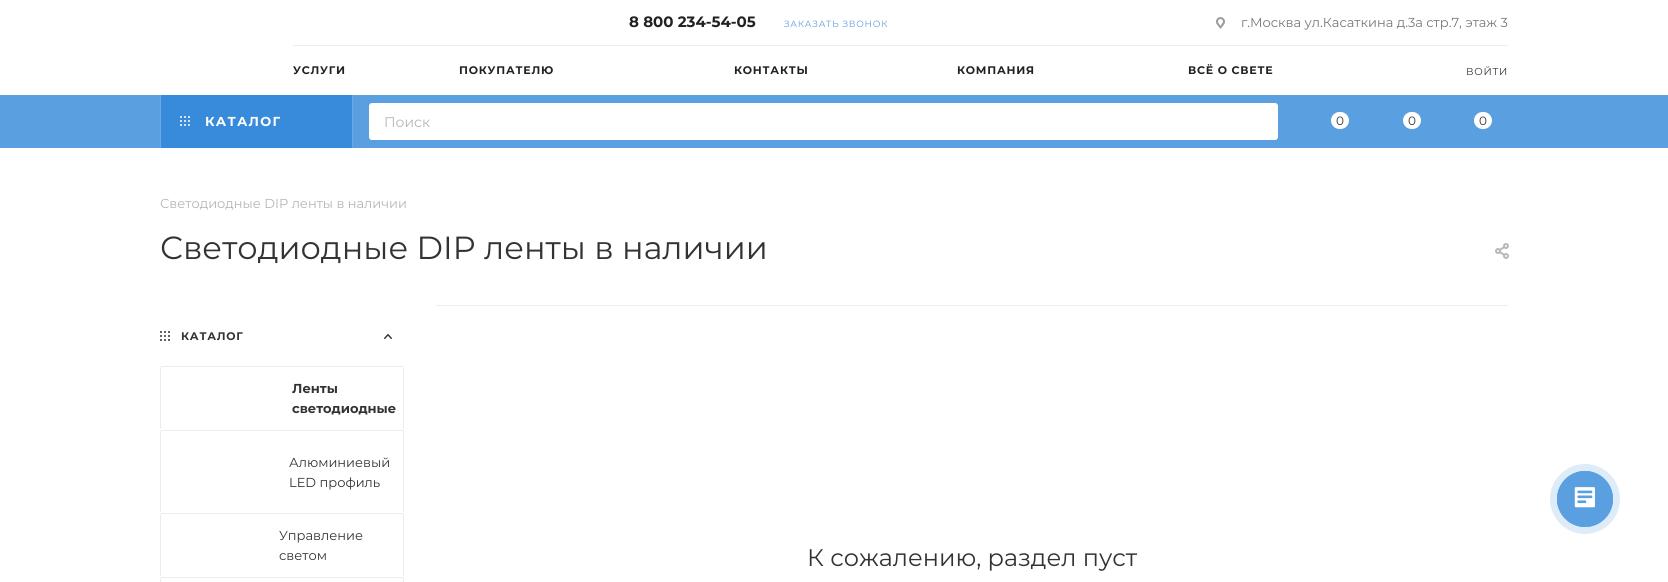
#include <cairo.h>
#include <math.h>
#include <stddef.h>


static void spaced_text(cairo_t *cr, double x, double y, const char *s, double letter, double word) {
    cairo_move_to(cr, x, y);
    while (*s) {
        char ch[5] = {0};
        int n = 0;
        do ch[n++] = *s++; while ((*s & 0xC0) == 0x80);
        cairo_show_text(cr, ch);
        cairo_rel_move_to(cr, letter + word * (*ch == ' '), 0);
    }
}

static void round_rect(cairo_t *cr, double x, double y, double w, double h, double r) {
    cairo_new_sub_path(cr);
    cairo_arc(cr, x + w - r, y + h - r, r, 0, M_PI / 2);
    cairo_arc(cr, x + r, y + h - r, r, M_PI / 2, M_PI);
    cairo_arc(cr, x + r, y + r, r, M_PI, 1.5 * M_PI);
    cairo_arc(cr, x + w - r, y + r, r, 1.5 * M_PI, 2 * M_PI);
    cairo_close_path(cr);
}

static void picture(cairo_t *cr, const char *path, double x, double y, double w, double h) {
    cairo_surface_t *image = cairo_image_surface_create_from_png(path);
    cairo_save(cr);
    cairo_set_source_surface(cr, image, x, y);
    cairo_rectangle(cr, x, y, w, h);
    cairo_fill(cr);
    cairo_restore(cr);
    cairo_surface_destroy(image);
}

int main(void) {
    cairo_surface_t *surface = cairo_image_surface_create(CAIRO_FORMAT_RGB24, 1668, 582);
    cairo_t *cr = cairo_create(surface);
    cairo_font_options_t *options = cairo_font_options_create();
    cairo_font_options_set_hint_metrics(options, CAIRO_HINT_METRICS_OFF);
    cairo_font_options_set_hint_style(options, CAIRO_HINT_STYLE_NONE);
    cairo_set_font_options(cr, options);
    cairo_set_miter_limit(cr, 4);
    cairo_set_source_rgb(cr, 1, 1, 1);
    cairo_paint(cr);
    cairo_select_font_face(cr, "Montserrat", CAIRO_FONT_SLANT_NORMAL, CAIRO_FONT_WEIGHT_BOLD);
    cairo_set_font_size(cr, 15);
    cairo_set_source_rgb(cr, 0.133, 0.133, 0.133);
    cairo_move_to(cr, 629, 27);
    cairo_show_text(cr, "8 800 234-54-05");
    cairo_select_font_face(cr, "Montserrat", CAIRO_FONT_SLANT_NORMAL, CAIRO_FONT_WEIGHT_NORMAL);
    cairo_set_font_size(cr, 9);
    cairo_set_source_rgb(cr, 0.353, 0.624, 0.878);
    spaced_text(cr, 784, 27, "ЗАКАЗАТЬ ЗВОНОК", 0.75, 0);
    picture(cr, "img1.png", 1216, 17, 9, 12);
    cairo_set_font_size(cr, 13);
    cairo_set_source_rgb(cr, 0.467, 0.467, 0.467);
    cairo_move_to(cr, 1241, 27);
    cairo_show_text(cr, "г.Москва ул.Касаткина д.3а стр.7, этаж 3");
    cairo_set_source_rgb(cr, 0.929, 0.929, 0.929);
    cairo_rectangle(cr, 293, 45, 1215, 1);
    cairo_fill(cr);
    cairo_select_font_face(cr, "Montserrat", CAIRO_FONT_SLANT_NORMAL, CAIRO_FONT_WEIGHT_BOLD);
    cairo_set_font_size(cr, 11);
    cairo_set_source_rgb(cr, 0.133, 0.133, 0.133);
    spaced_text(cr, 293, 74, "УСЛУГИ", 0.75, 0);
    spaced_text(cr, 459, 74, "ПОКУПАТЕЛЮ", 0.75, 0);
    spaced_text(cr, 734, 74, "КОНТАКТЫ", 0.75, 0);
    spaced_text(cr, 957, 74, "КОМПАНИЯ", 0.75, 0);
    spaced_text(cr, 1188, 74, "ВСЁ О СВЕТЕ", 0.75, 0);
    cairo_select_font_face(cr, "Montserrat", CAIRO_FONT_SLANT_NORMAL, CAIRO_FONT_WEIGHT_NORMAL);
    cairo_set_font_size(cr, 10);
    cairo_set_source_rgb(cr, 0.2, 0.2, 0.2);
    spaced_text(cr, 1466, 75, "ВОЙТИ", 0.75, 0);
    cairo_set_source_rgb(cr, 0.353, 0.624, 0.878);
    cairo_rectangle(cr, 0, 95, 1668, 53);
    cairo_fill(cr);
    cairo_set_source_rgb(cr, 0.42, 0.663, 0.89);
    cairo_rectangle(cr, 352, 95, 1, 53);
    cairo_fill(cr);
    cairo_rectangle(cr, 160, 95, 1, 53);
    cairo_fill(cr);
    cairo_set_source_rgb(cr, 0.22, 0.545, 0.855);
    cairo_rectangle(cr, 161, 95, 191, 53);
    cairo_fill(cr);
    picture(cr, "img2.png", 180, 116, 10, 10);
    cairo_select_font_face(cr, "Montserrat", CAIRO_FONT_SLANT_NORMAL, CAIRO_FONT_WEIGHT_BOLD);
    cairo_set_font_size(cr, 13);
    cairo_set_source_rgb(cr, 1, 1, 1);
    spaced_text(cr, 205, 126, "КАТАЛОГ", 1.25, 0);
    round_rect(cr, 369.5, 103.5, 908, 36, 2.5);
    cairo_fill_preserve(cr);
    cairo_set_line_width(cr, 1);
    cairo_stroke(cr);
    cairo_select_font_face(cr, "Montserrat", CAIRO_FONT_SLANT_NORMAL, CAIRO_FONT_WEIGHT_NORMAL);
    cairo_set_font_size(cr, 14);
    cairo_set_source_rgb(cr, 0.714, 0.71, 0.71);
    cairo_move_to(cr, 384, 127);
    cairo_show_text(cr, "Поиск");
    cairo_set_source_rgb(cr, 1, 1, 1);
    round_rect(cr, 1331, 112, 18, 17, 8.5);
    cairo_fill(cr);
    cairo_set_font_size(cr, 12);
    cairo_set_source_rgb(cr, 0.2, 0.2, 0.2);
    cairo_move_to(cr, 1336, 125);
    cairo_show_text(cr, "0");
    cairo_set_source_rgb(cr, 1, 1, 1);
    round_rect(cr, 1403, 112, 18, 17, 8.5);
    cairo_fill(cr);
    cairo_set_source_rgb(cr, 0.2, 0.2, 0.2);
    cairo_move_to(cr, 1408, 125);
    cairo_show_text(cr, "0");
    cairo_set_source_rgb(cr, 1, 1, 1);
    round_rect(cr, 1474, 112, 18, 17, 8.5);
    cairo_fill(cr);
    cairo_set_source_rgb(cr, 0.2, 0.2, 0.2);
    cairo_move_to(cr, 1479, 125);
    cairo_show_text(cr, "0");
    cairo_set_font_size(cr, 13);
    cairo_set_source_rgb(cr, 0.714, 0.71, 0.71);
    cairo_move_to(cr, 160, 208);
    cairo_show_text(cr, "Светодиодные DIP ленты в наличии");
    cairo_set_font_size(cr, 32);
    cairo_set_source_rgb(cr, 0.2, 0.2, 0.2);
    cairo_move_to(cr, 160, 259);
    cairo_show_text(cr, "Светодиодные DIP ленты в наличии");
    picture(cr, "img3.png", 1495, 243, 14, 16);
    picture(cr, "img4.png", 160, 331, 10, 10);
    cairo_select_font_face(cr, "Montserrat", CAIRO_FONT_SLANT_NORMAL, CAIRO_FONT_WEIGHT_BOLD);
    cairo_set_font_size(cr, 11);
    spaced_text(cr, 181, 340, "КАТАЛОГ", 0.75, 0);
    picture(cr, "img5.png", 384, 334, 8, 5);
    cairo_set_source_rgb(cr, 0.925, 0.925, 0.925);
    cairo_rectangle(cr, 161, 366, 242, 1);
    cairo_fill(cr);
    cairo_rectangle(cr, 403, 367, 1, 62);
    cairo_fill(cr);
    cairo_rectangle(cr, 160, 367, 1, 62);
    cairo_fill(cr);
    cairo_set_font_size(cr, 13);
    cairo_set_source_rgb(cr, 0.2, 0.2, 0.2);
    cairo_move_to(cr, 292, 393);
    cairo_show_text(cr, "Ленты");
    cairo_move_to(cr, 292, 413);
    cairo_show_text(cr, "светодиодные");
    cairo_set_source_rgb(cr, 0.925, 0.925, 0.925);
    cairo_rectangle(cr, 161, 430, 242, 1);
    cairo_fill(cr);
    cairo_rectangle(cr, 403, 431, 1, 81);
    cairo_fill(cr);
    cairo_rectangle(cr, 160, 431, 1, 81);
    cairo_fill(cr);
    cairo_select_font_face(cr, "Montserrat", CAIRO_FONT_SLANT_NORMAL, CAIRO_FONT_WEIGHT_NORMAL);
    cairo_set_source_rgb(cr, 0.2, 0.2, 0.2);
    cairo_move_to(cr, 289, 467);
    cairo_show_text(cr, "Алюминиевый");
    cairo_move_to(cr, 289, 487);
    cairo_show_text(cr, "LED профиль");
    cairo_set_source_rgb(cr, 0.925, 0.925, 0.925);
    cairo_rectangle(cr, 161, 513, 242, 1);
    cairo_fill(cr);
    cairo_rectangle(cr, 403, 514, 1, 62);
    cairo_fill(cr);
    cairo_rectangle(cr, 160, 514, 1, 62);
    cairo_fill(cr);
    cairo_set_source_rgb(cr, 0.2, 0.2, 0.2);
    cairo_move_to(cr, 279, 540);
    cairo_show_text(cr, "Управление");
    cairo_move_to(cr, 279, 560);
    cairo_show_text(cr, "светом");
    cairo_set_source_rgb(cr, 0.925, 0.925, 0.925);
    cairo_rectangle(cr, 161, 577, 242, 1);
    cairo_fill(cr);
    cairo_rectangle(cr, 403, 578, 1, 4);
    cairo_fill(cr);
    cairo_rectangle(cr, 160, 578, 1, 4);
    cairo_fill(cr);
    cairo_set_source_rgb(cr, 0.933, 0.933, 0.933);
    cairo_rectangle(cr, 436, 305, 1072, 1);
    cairo_fill(cr);
    cairo_set_font_size(cr, 24);
    cairo_set_source_rgb(cr, 0.2, 0.2, 0.2);
    cairo_move_to(cr, 807, 566);
    cairo_show_text(cr, "К сожалению, раздел пуст");
    cairo_set_source_rgb(cr, 0.871, 0.925, 0.976);
    cairo_new_path(cr);
    cairo_arc(cr, 1585, 499, 35, 0, 2 * M_PI);
    cairo_fill(cr);
    cairo_arc(cr, 1585, 499, 27.6, 0, 2 * M_PI);
    cairo_set_source_rgb(cr, 0.353, 0.624, 0.878);
    cairo_set_line_width(cr, 0.8);
    cairo_stroke(cr);
    cairo_arc(cr, 1585, 499, 28, 0, 2 * M_PI);
    cairo_fill(cr);
    picture(cr, "img6.png", 1574, 487, 21, 21);
    cairo_surface_write_to_png(surface, "page.png");
    cairo_font_options_destroy(options);
    cairo_destroy(cr);
    cairo_surface_destroy(surface);
    return 0;
}
